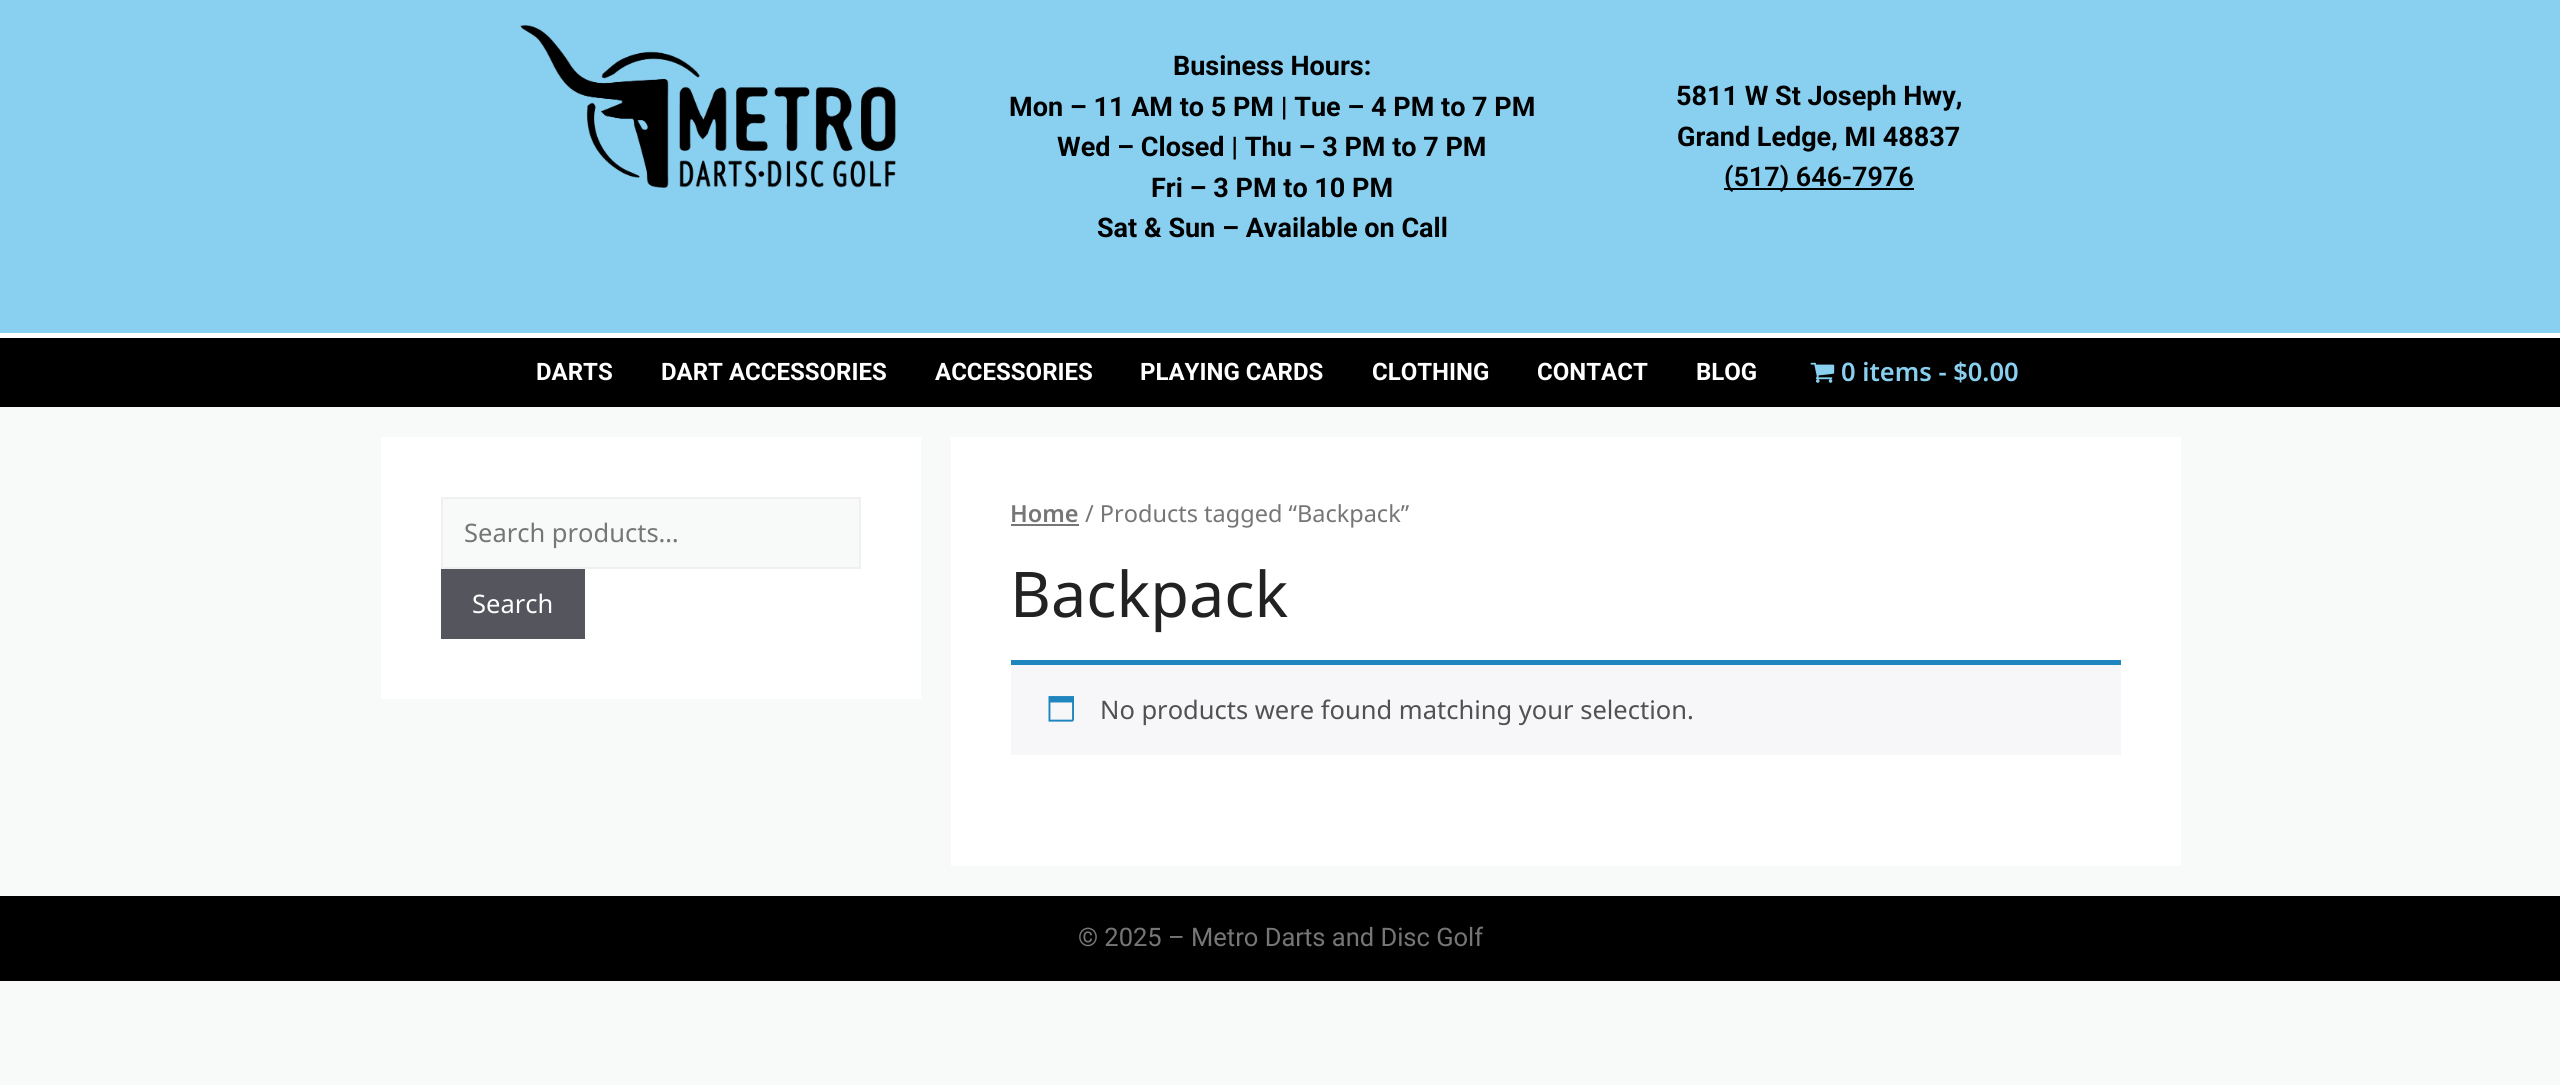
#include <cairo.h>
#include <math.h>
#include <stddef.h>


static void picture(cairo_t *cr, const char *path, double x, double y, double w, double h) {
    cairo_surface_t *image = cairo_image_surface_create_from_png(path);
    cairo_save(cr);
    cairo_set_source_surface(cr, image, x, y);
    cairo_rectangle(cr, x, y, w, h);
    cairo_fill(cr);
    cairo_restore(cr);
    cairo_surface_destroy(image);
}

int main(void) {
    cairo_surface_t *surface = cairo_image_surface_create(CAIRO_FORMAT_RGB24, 2560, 1085);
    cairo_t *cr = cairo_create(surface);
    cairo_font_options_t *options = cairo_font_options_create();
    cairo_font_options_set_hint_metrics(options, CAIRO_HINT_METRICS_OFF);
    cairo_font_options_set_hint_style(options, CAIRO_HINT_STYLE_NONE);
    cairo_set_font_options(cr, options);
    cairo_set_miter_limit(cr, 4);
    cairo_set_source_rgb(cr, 0.969, 0.973, 0.976);
    cairo_paint(cr);
    cairo_set_source_rgb(cr, 0.537, 0.812, 0.941);
    cairo_rectangle(cr, 0, 0, 2560, 333);
    cairo_fill(cr);
    picture(cr, "img1.png", 520, 25, 376, 163);
    cairo_select_font_face(cr, "Roboto", CAIRO_FONT_SLANT_NORMAL, CAIRO_FONT_WEIGHT_BOLD);
    cairo_set_font_size(cr, 27);
    cairo_set_source_rgb(cr, 0, 0, 0);
    cairo_move_to(cr, 1173, 75);
    cairo_show_text(cr, "Business Hours:");
    cairo_move_to(cr, 1009, 116);
    cairo_show_text(cr, "Mon – 11 AM to 5 PM | Tue – 4 PM to 7 PM");
    cairo_move_to(cr, 1057, 156);
    cairo_show_text(cr, "Wed – Closed | Thu – 3 PM to 7 PM");
    cairo_move_to(cr, 1151, 197);
    cairo_show_text(cr, "Fri – 3 PM to 10 PM");
    cairo_move_to(cr, 1097, 237);
    cairo_show_text(cr, "Sat & Sun – Available on Call");
    cairo_move_to(cr, 1676, 105);
    cairo_show_text(cr, "5811 W St Joseph Hwy,");
    cairo_move_to(cr, 1677, 146);
    cairo_show_text(cr, "Grand Ledge, MI 48837");
    cairo_rectangle(cr, 1724, 188, 190, 2);
    cairo_fill(cr);
    cairo_select_font_face(cr, "Roboto SemiBold", CAIRO_FONT_SLANT_NORMAL, CAIRO_FONT_WEIGHT_NORMAL);
    cairo_move_to(cr, 1724, 186);
    cairo_show_text(cr, "(517) 646-7976");
    cairo_rectangle(cr, 0, 338, 2560, 69);
    cairo_fill(cr);
    cairo_set_source_rgb(cr, 1, 1, 1);
    cairo_rectangle(cr, 0, 333, 2560, 5);
    cairo_fill(cr);
    cairo_select_font_face(cr, "Roboto", CAIRO_FONT_SLANT_NORMAL, CAIRO_FONT_WEIGHT_BOLD);
    cairo_set_font_size(cr, 24);
    cairo_move_to(cr, 536, 380);
    cairo_show_text(cr, "DARTS");
    cairo_move_to(cr, 661, 380);
    cairo_show_text(cr, "DART ACCESSORIES");
    cairo_move_to(cr, 935, 380);
    cairo_show_text(cr, "ACCESSORIES");
    cairo_move_to(cr, 1140, 380);
    cairo_show_text(cr, "PLAYING CARDS");
    cairo_move_to(cr, 1372, 380);
    cairo_show_text(cr, "CLOTHING");
    cairo_move_to(cr, 1537, 380);
    cairo_show_text(cr, "CONTACT");
    cairo_move_to(cr, 1696, 380);
    cairo_show_text(cr, "BLOG");
    picture(cr, "img2.png", 1810, 362, 25, 21);
    cairo_select_font_face(cr, "Noto Sans SemiBold", CAIRO_FONT_SLANT_NORMAL, CAIRO_FONT_WEIGHT_NORMAL);
    cairo_set_font_size(cr, 25.5);
    cairo_set_source_rgb(cr, 0.537, 0.812, 0.941);
    cairo_move_to(cr, 1841, 381);
    cairo_show_text(cr, "0 items - $0.00");
    cairo_set_source_rgb(cr, 1, 1, 1);
    cairo_rectangle(cr, 381, 437, 540, 262);
    cairo_fill(cr);
    cairo_set_source_rgb(cr, 0.969, 0.973, 0.976);
    cairo_rectangle(cr, 442, 498, 418, 70);
    cairo_fill_preserve(cr);
    cairo_set_source_rgb(cr, 0.941, 0.941, 0.941);
    cairo_stroke(cr);
    cairo_select_font_face(cr, "Noto Sans", CAIRO_FONT_SLANT_NORMAL, CAIRO_FONT_WEIGHT_NORMAL);
    cairo_set_source_rgb(cr, 0.463, 0.463, 0.463);
    cairo_move_to(cr, 464, 542);
    cairo_show_text(cr, "Search products…");
    cairo_set_source_rgb(cr, 0.333, 0.333, 0.369);
    cairo_rectangle(cr, 441, 569, 144, 70);
    cairo_fill(cr);
    cairo_set_source_rgb(cr, 1, 1, 1);
    cairo_move_to(cr, 472, 613);
    cairo_show_text(cr, "Search");
    cairo_rectangle(cr, 951, 437, 1230, 429);
    cairo_fill(cr);
    cairo_select_font_face(cr, "Noto Sans SemiBold", CAIRO_FONT_SLANT_NORMAL, CAIRO_FONT_WEIGHT_NORMAL);
    cairo_set_font_size(cr, 23.5);
    cairo_set_source_rgb(cr, 0.463, 0.463, 0.463);
    cairo_move_to(cr, 1010, 522);
    cairo_show_text(cr, "Home");
    cairo_rectangle(cr, 1011, 524, 68, 2);
    cairo_fill(cr);
    cairo_select_font_face(cr, "Noto Sans", CAIRO_FONT_SLANT_NORMAL, CAIRO_FONT_WEIGHT_NORMAL);
    cairo_move_to(cr, 1085, 522);
    cairo_show_text(cr, "/ Products tagged “Backpack”");
    cairo_set_font_size(cr, 63);
    cairo_set_source_rgb(cr, 0.133, 0.133, 0.133);
    cairo_move_to(cr, 1010, 617);
    cairo_show_text(cr, "Backpack");
    cairo_set_source_rgb(cr, 0.965, 0.961, 0.973);
    cairo_rectangle(cr, 1011, 665, 1110, 90);
    cairo_fill(cr);
    cairo_set_source_rgb(cr, 0.118, 0.522, 0.745);
    cairo_rectangle(cr, 1011, 660, 1110, 5);
    cairo_fill(cr);
    picture(cr, "img3.png", 1048, 696, 26, 26);
    cairo_set_font_size(cr, 25.5);
    cairo_set_source_rgb(cr, 0.318, 0.318, 0.318);
    cairo_move_to(cr, 1100, 719);
    cairo_show_text(cr, "No products were found matching your selection.");
    cairo_set_source_rgb(cr, 0, 0, 0);
    cairo_rectangle(cr, 0, 896, 2560, 85);
    cairo_fill(cr);
    cairo_select_font_face(cr, "Roboto", CAIRO_FONT_SLANT_NORMAL, CAIRO_FONT_WEIGHT_NORMAL);
    cairo_set_source_rgb(cr, 0.463, 0.463, 0.463);
    cairo_move_to(cr, 1078, 946);
    cairo_show_text(cr, "© 2025 – Metro Darts and Disc Golf");
    cairo_surface_write_to_png(surface, "page.png");
    cairo_font_options_destroy(options);
    cairo_destroy(cr);
    cairo_surface_destroy(surface);
    return 0;
}
